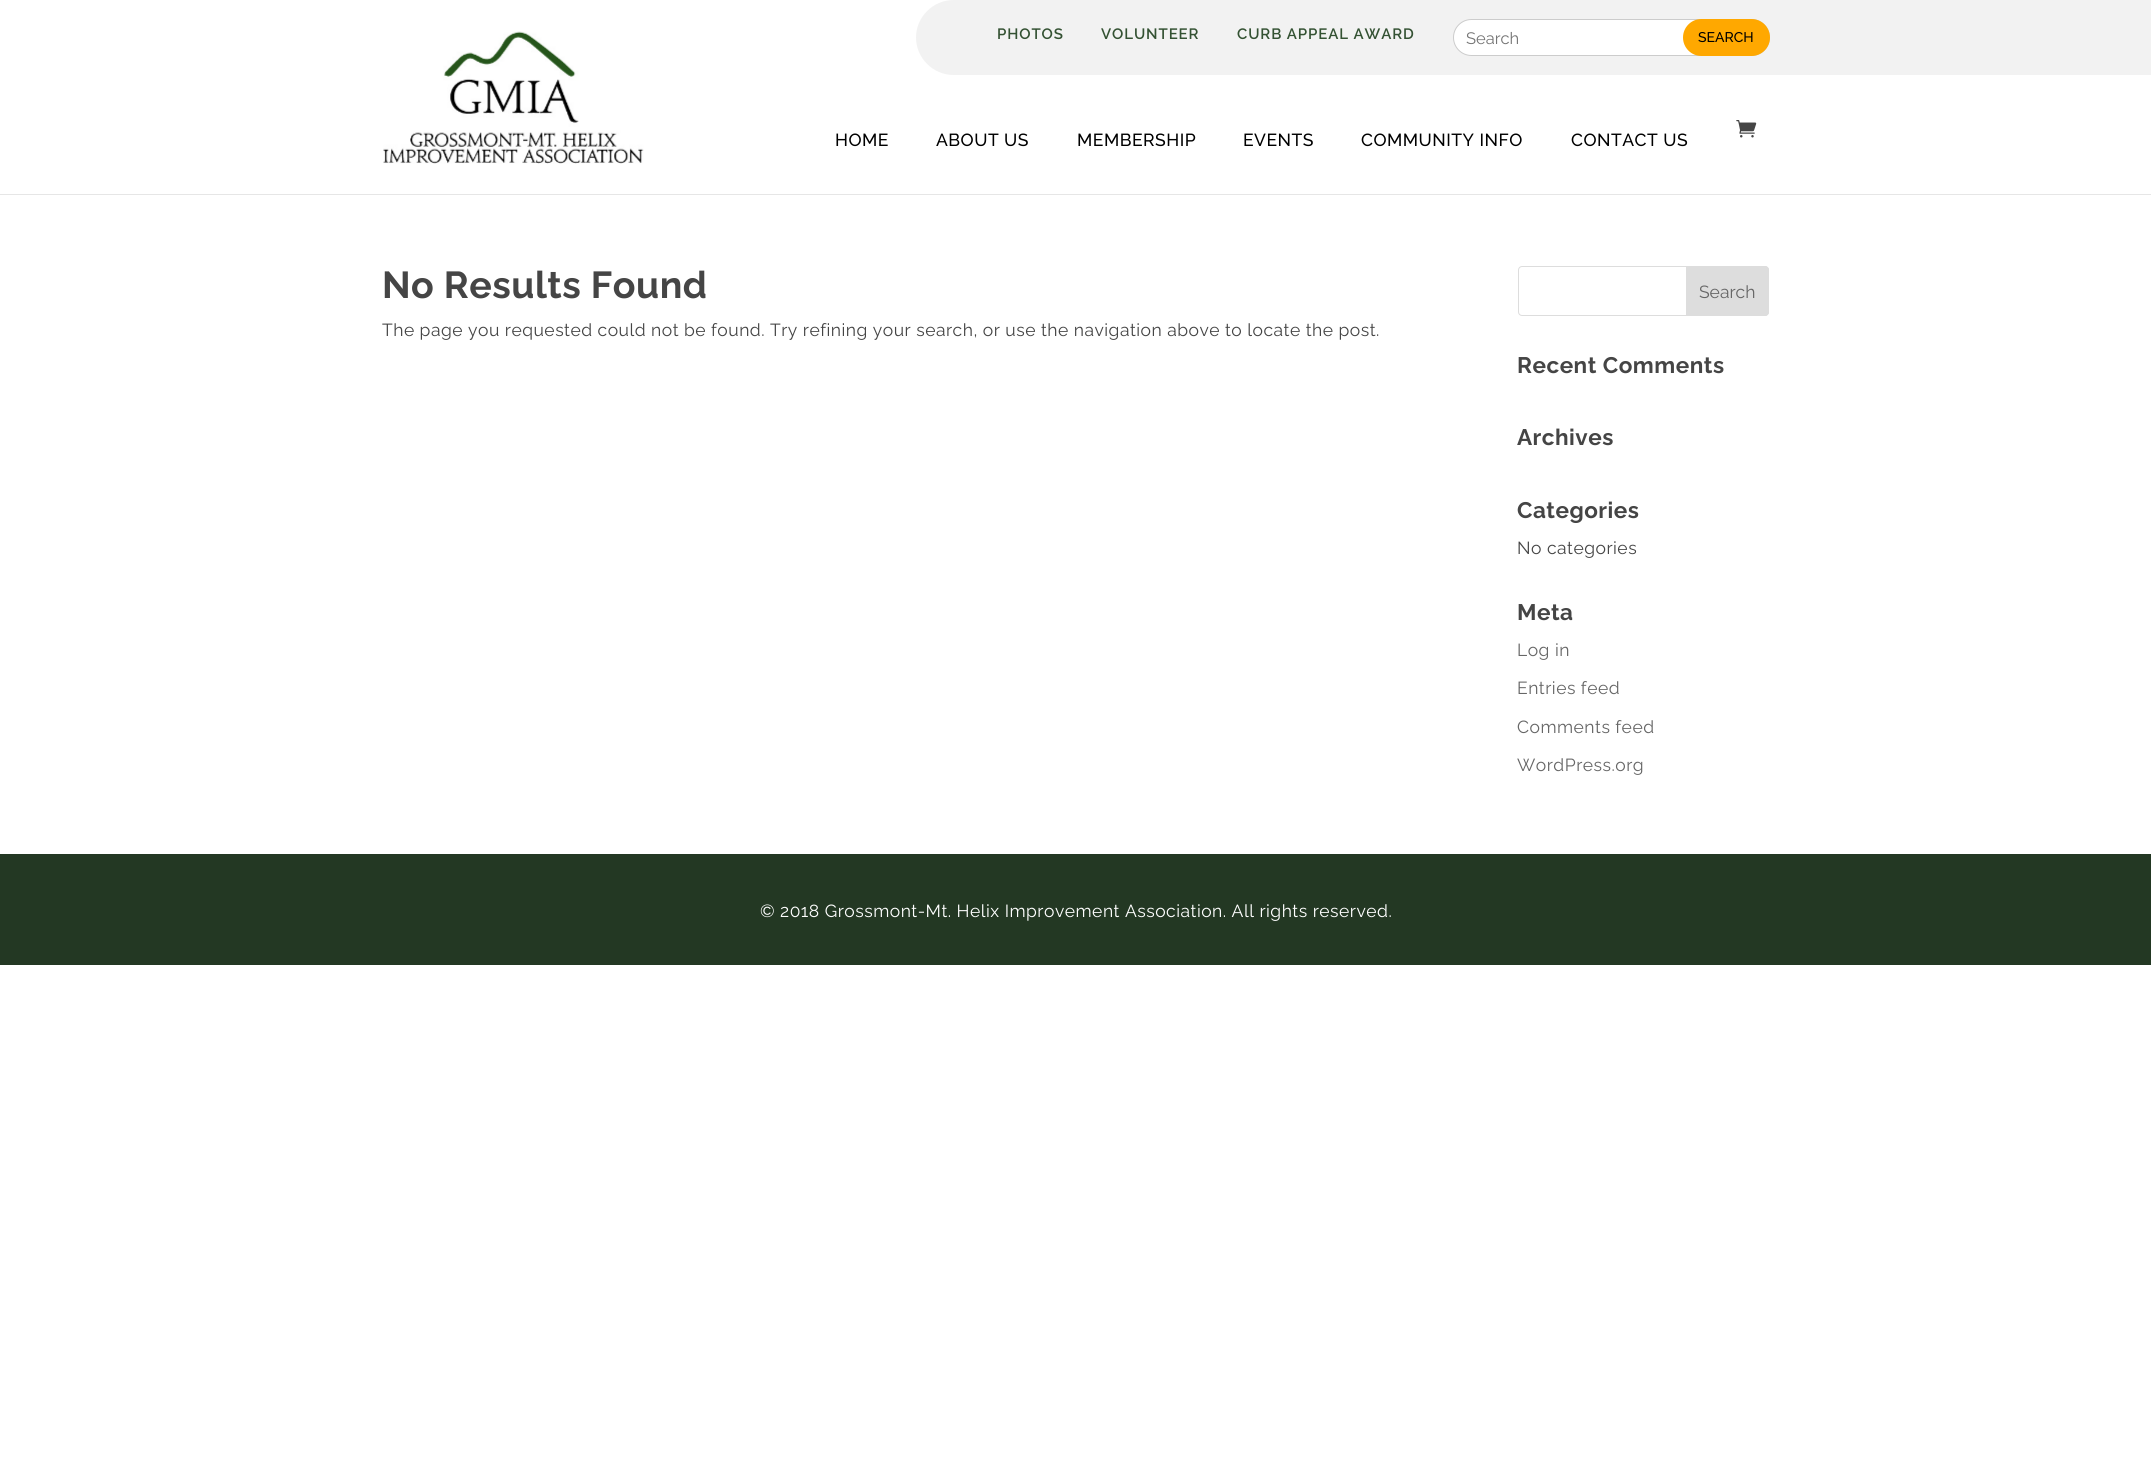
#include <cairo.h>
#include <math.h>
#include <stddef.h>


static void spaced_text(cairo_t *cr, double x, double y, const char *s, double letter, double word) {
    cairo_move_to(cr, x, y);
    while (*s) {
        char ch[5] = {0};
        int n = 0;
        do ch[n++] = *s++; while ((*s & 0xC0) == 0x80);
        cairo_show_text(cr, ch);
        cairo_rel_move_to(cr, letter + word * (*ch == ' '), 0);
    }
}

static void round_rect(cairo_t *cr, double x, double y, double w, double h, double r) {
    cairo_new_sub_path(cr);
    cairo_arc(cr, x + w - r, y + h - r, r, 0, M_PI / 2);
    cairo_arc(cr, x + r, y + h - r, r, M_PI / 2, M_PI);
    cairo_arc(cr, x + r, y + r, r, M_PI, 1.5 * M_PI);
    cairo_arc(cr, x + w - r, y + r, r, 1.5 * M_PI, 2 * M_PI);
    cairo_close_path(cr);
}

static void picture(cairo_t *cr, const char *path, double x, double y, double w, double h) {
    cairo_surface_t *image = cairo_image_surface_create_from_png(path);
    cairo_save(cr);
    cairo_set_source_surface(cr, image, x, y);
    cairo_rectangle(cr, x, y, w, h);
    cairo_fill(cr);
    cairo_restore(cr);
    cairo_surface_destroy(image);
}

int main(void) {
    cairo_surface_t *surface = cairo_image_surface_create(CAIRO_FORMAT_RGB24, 2151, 1469);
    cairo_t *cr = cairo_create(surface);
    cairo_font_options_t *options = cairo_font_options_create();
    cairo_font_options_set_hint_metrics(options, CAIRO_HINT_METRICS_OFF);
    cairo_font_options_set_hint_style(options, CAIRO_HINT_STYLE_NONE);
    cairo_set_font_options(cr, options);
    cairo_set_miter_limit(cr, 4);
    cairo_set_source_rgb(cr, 1, 1, 1);
    cairo_paint(cr);
    cairo_set_source_rgb(cr, 0.902, 0.902, 0.902);
    cairo_rectangle(cr, 0, 194, 2151, 1);
    cairo_fill(cr);
    picture(cr, "img1.png", 383, 31, 261, 133);
    cairo_set_source_rgb(cr, 0.949, 0.949, 0.949);
    cairo_new_path(cr);
    cairo_move_to(cr, 953.5, 0);
    cairo_line_to(cr, 1770, 0);
    cairo_line_to(cr, 1770, 75);
    cairo_line_to(cr, 953.5, 75);
    cairo_curve_to(cr, 933, 75, 916, 58, 916, 37.5);
    cairo_curve_to(cr, 916, 17, 933, 0, 953.5, 0);
    cairo_close_path(cr);
    cairo_fill(cr);
    cairo_select_font_face(cr, "Raleway SemiBold", CAIRO_FONT_SLANT_NORMAL, CAIRO_FONT_WEIGHT_NORMAL);
    cairo_set_font_size(cr, 15);
    cairo_set_source_rgb(cr, 0.204, 0.322, 0.2);
    spaced_text(cr, 997, 39, "PHOTOS", 0.9, 0);
    spaced_text(cr, 1101, 39, "VOLUNTEER", 0.9, 0);
    spaced_text(cr, 1237, 39, "CURB APPEAL AWARD", 0.9, 0);
    cairo_set_source_rgb(cr, 1, 1, 1);
    round_rect(cr, 1453.5, 19.5, 316, 36, 18);
    cairo_fill_preserve(cr);
    cairo_set_source_rgb(cr, 0.8, 0.8, 0.8);
    cairo_set_line_width(cr, 1);
    cairo_stroke(cr);
    cairo_select_font_face(cr, "Raleway", CAIRO_FONT_SLANT_NORMAL, CAIRO_FONT_WEIGHT_NORMAL);
    cairo_set_font_size(cr, 16.5);
    cairo_set_source_rgb(cr, 0.459, 0.459, 0.459);
    cairo_move_to(cr, 1466, 44);
    cairo_show_text(cr, "Search");
    cairo_set_source_rgb(cr, 1, 0.659, 0);
    round_rect(cr, 1683, 19, 87, 37, 18.5);
    cairo_fill(cr);
    cairo_select_font_face(cr, "Raleway Medium", CAIRO_FONT_SLANT_NORMAL, CAIRO_FONT_WEIGHT_NORMAL);
    cairo_set_font_size(cr, 14);
    cairo_set_source_rgb(cr, 0, 0, 0);
    cairo_move_to(cr, 1698, 42);
    cairo_show_text(cr, "SEARCH");
    cairo_set_source_rgb(cr, 0.949, 0.949, 0.949);
    cairo_rectangle(cr, 1770, 0, 381, 75);
    cairo_fill(cr);
    picture(cr, "img2.png", 1736, 120, 21, 18);
    cairo_set_font_size(cr, 17.5);
    cairo_set_source_rgb(cr, 0, 0, 0);
    spaced_text(cr, 835, 146, "HOME", 0.5, 0);
    spaced_text(cr, 936, 146, "ABOUT US", 0.5, 0);
    spaced_text(cr, 1077, 146, "MEMBERSHIP", 0.5, 0);
    spaced_text(cr, 1243, 146, "EVENTS", 0.5, 0);
    spaced_text(cr, 1361, 146, "COMMUNITY INFO", 0.5, 0);
    spaced_text(cr, 1571, 146, "CONTACT US", 0.5, 0);
    cairo_select_font_face(cr, "Raleway", CAIRO_FONT_SLANT_NORMAL, CAIRO_FONT_WEIGHT_BOLD);
    cairo_set_font_size(cr, 37.5);
    cairo_set_source_rgb(cr, 0.271, 0.271, 0.271);
    spaced_text(cr, 382, 298, "No Results Found", 0.5, 0);
    cairo_select_font_face(cr, "Raleway", CAIRO_FONT_SLANT_NORMAL, CAIRO_FONT_WEIGHT_NORMAL);
    cairo_set_font_size(cr, 17.5);
    spaced_text(cr, 382, 336, "The page you requested could not be found. Try refining your search, or use the navigation above to locate the post.", 0.5, 0);
    round_rect(cr, 1518.5, 266.5, 250, 49, 3.5);
    cairo_set_source_rgb(cr, 0.867, 0.867, 0.867);
    cairo_stroke(cr);
    cairo_new_path(cr);
    cairo_move_to(cr, 1686.5, 266.5);
    cairo_line_to(cr, 1765, 266.5);
    cairo_curve_to(cr, 1767, 266.5, 1768.5, 268, 1768.5, 270);
    cairo_line_to(cr, 1768.5, 312);
    cairo_curve_to(cr, 1768.5, 314, 1767, 315.5, 1765, 315.5);
    cairo_line_to(cr, 1686.5, 315.5);
    cairo_close_path(cr);
    cairo_fill_preserve(cr);
    cairo_stroke(cr);
    cairo_set_source_rgb(cr, 0.4, 0.4, 0.4);
    cairo_move_to(cr, 1699, 298);
    cairo_show_text(cr, "Search");
    cairo_select_font_face(cr, "Raleway", CAIRO_FONT_SLANT_NORMAL, CAIRO_FONT_WEIGHT_BOLD);
    cairo_set_font_size(cr, 22.5);
    cairo_set_source_rgb(cr, 0.271, 0.271, 0.271);
    spaced_text(cr, 1517, 373, "Recent Comments", 0.5, 0);
    spaced_text(cr, 1517, 445, "Archives", 0.5, 0);
    spaced_text(cr, 1517, 518, "Categories", 0.5, 0);
    cairo_select_font_face(cr, "Raleway", CAIRO_FONT_SLANT_NORMAL, CAIRO_FONT_WEIGHT_NORMAL);
    cairo_set_font_size(cr, 17.5);
    spaced_text(cr, 1517, 554, "No categories", 0.5, 0);
    cairo_select_font_face(cr, "Raleway", CAIRO_FONT_SLANT_NORMAL, CAIRO_FONT_WEIGHT_BOLD);
    cairo_set_font_size(cr, 22.5);
    spaced_text(cr, 1517, 620, "Meta", 0.5, 0);
    cairo_select_font_face(cr, "Raleway", CAIRO_FONT_SLANT_NORMAL, CAIRO_FONT_WEIGHT_NORMAL);
    cairo_set_font_size(cr, 17.5);
    cairo_set_source_rgb(cr, 0.4, 0.4, 0.4);
    spaced_text(cr, 1517, 656, "Log in", 0.5, 0);
    spaced_text(cr, 1517, 694, "Entries feed", 0.5, 0);
    spaced_text(cr, 1517, 733, "Comments feed", 0.5, 0);
    spaced_text(cr, 1517, 771, "WordPress.org", 0.5, 0);
    cairo_set_source_rgb(cr, 0.137, 0.22, 0.137);
    cairo_rectangle(cr, 0, 854, 2151, 111);
    cairo_fill(cr);
    cairo_set_source_rgb(cr, 1, 1, 1);
    spaced_text(cr, 760, 917, "© 2018 Grossmont-Mt. Helix Improvement Association. All rights reserved.", 0.5, 0);
    cairo_surface_write_to_png(surface, "page.png");
    cairo_font_options_destroy(options);
    cairo_destroy(cr);
    cairo_surface_destroy(surface);
    return 0;
}
